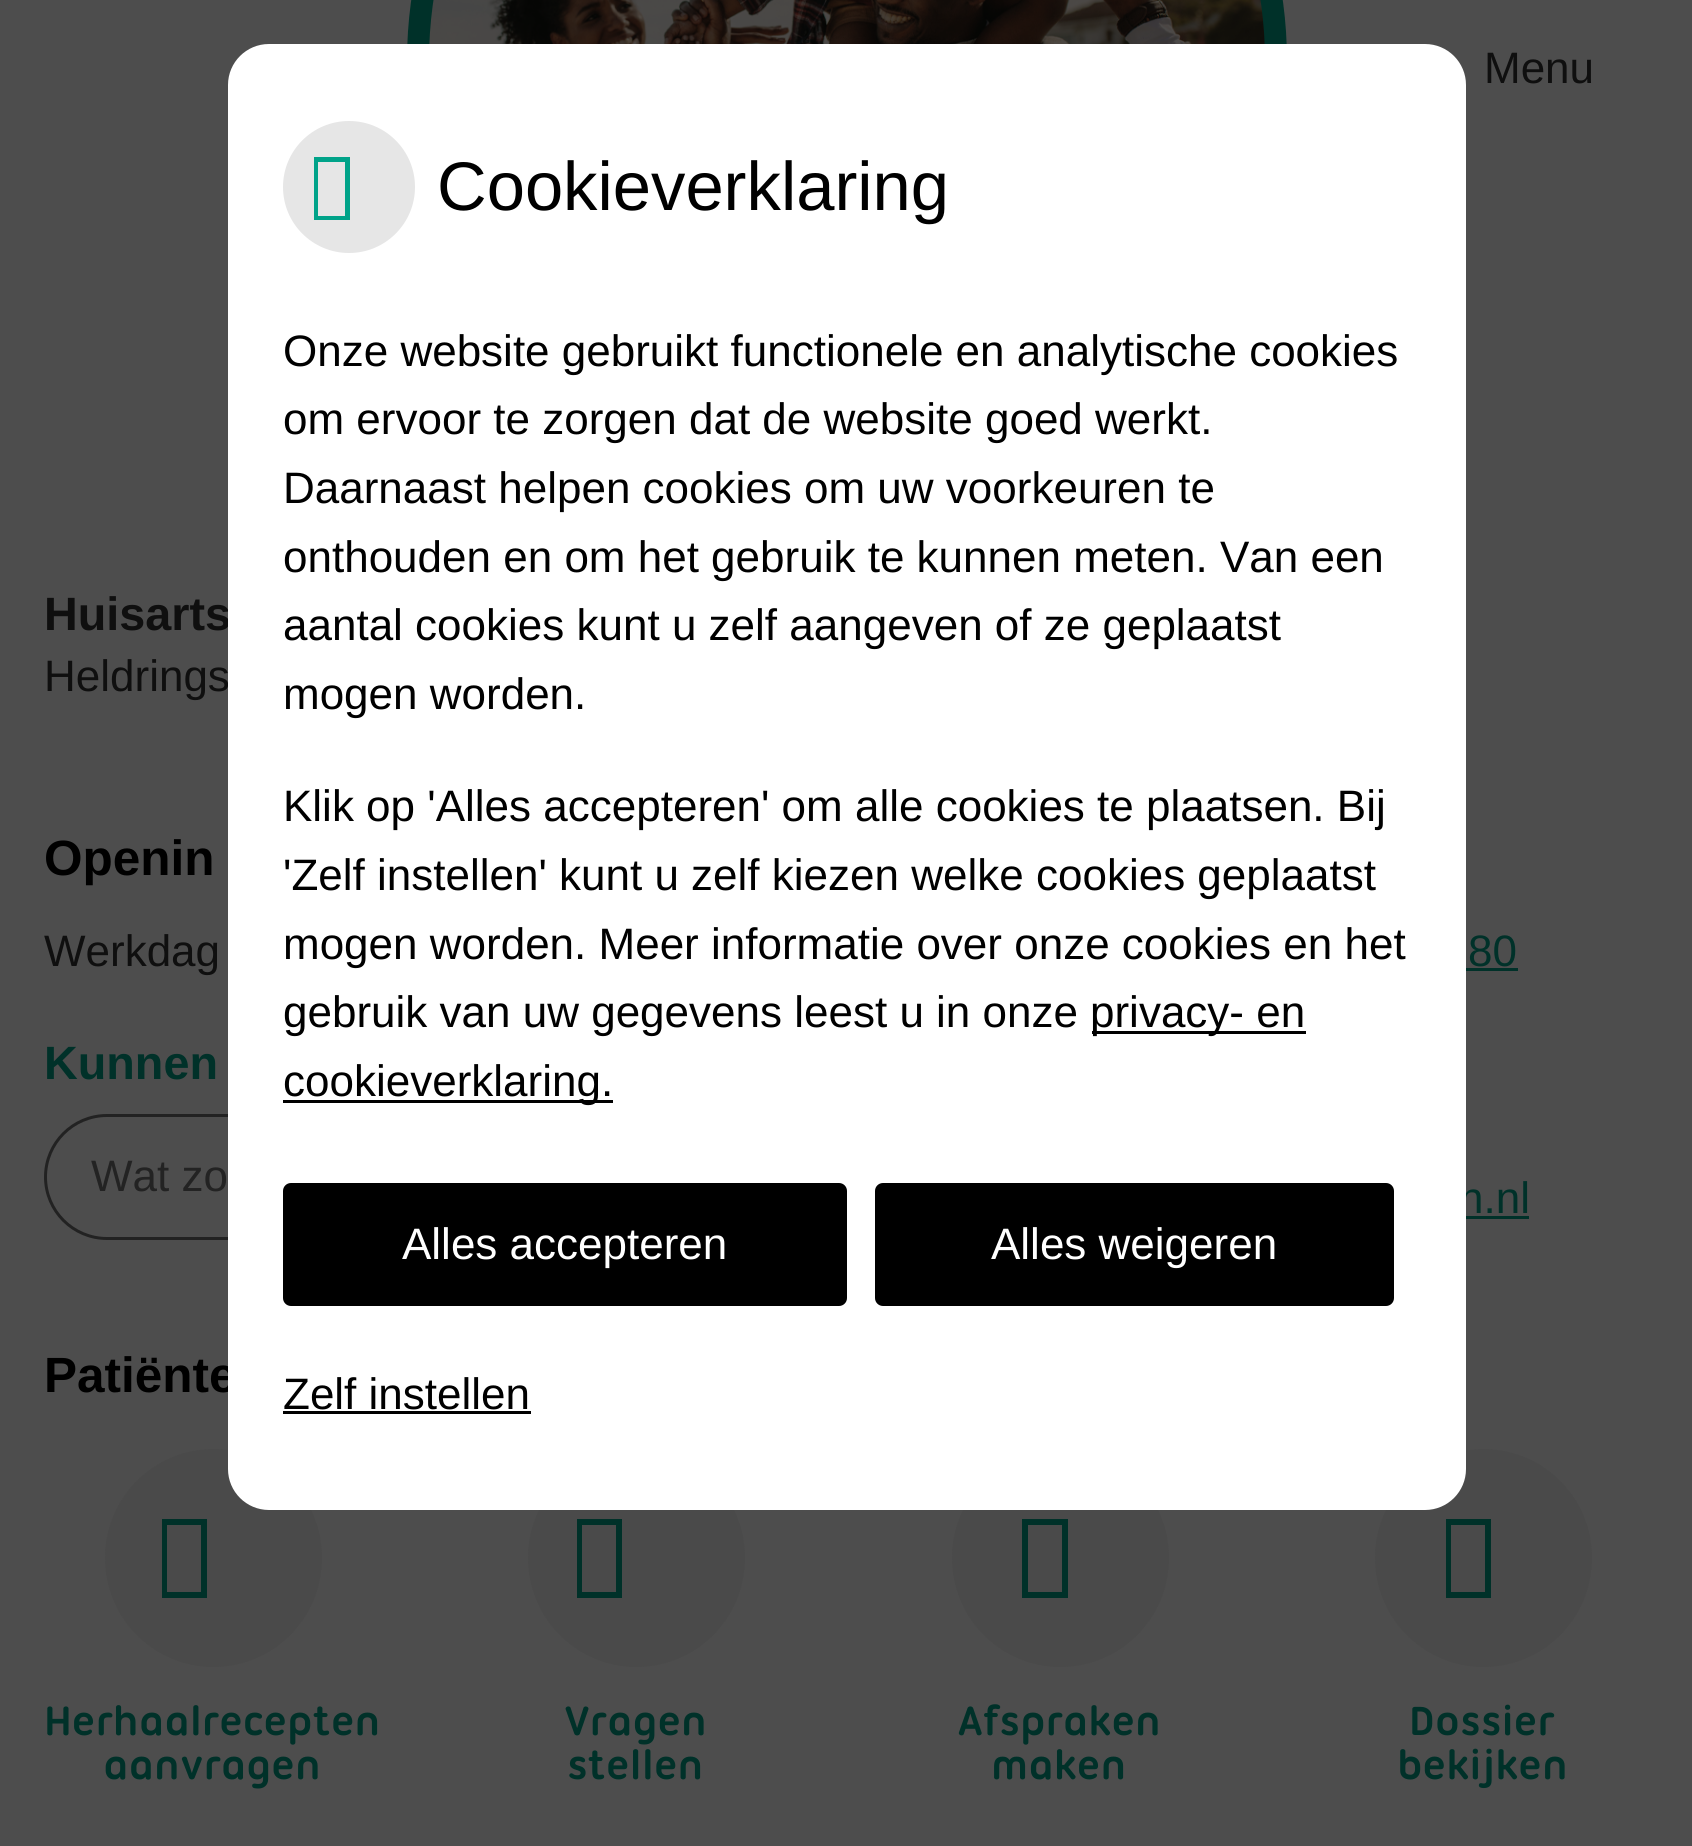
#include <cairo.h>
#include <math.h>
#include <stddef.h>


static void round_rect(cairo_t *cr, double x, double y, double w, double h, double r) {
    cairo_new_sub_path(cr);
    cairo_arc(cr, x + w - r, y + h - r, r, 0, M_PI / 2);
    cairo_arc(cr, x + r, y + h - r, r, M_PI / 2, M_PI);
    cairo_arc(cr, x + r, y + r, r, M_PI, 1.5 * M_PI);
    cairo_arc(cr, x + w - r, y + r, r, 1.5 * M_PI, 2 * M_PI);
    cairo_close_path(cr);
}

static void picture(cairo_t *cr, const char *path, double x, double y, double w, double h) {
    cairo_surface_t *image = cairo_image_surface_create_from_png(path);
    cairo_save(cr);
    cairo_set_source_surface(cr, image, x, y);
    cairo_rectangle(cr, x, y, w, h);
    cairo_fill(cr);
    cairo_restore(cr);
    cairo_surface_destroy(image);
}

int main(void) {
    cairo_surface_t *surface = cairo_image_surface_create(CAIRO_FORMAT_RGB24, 1692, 1846);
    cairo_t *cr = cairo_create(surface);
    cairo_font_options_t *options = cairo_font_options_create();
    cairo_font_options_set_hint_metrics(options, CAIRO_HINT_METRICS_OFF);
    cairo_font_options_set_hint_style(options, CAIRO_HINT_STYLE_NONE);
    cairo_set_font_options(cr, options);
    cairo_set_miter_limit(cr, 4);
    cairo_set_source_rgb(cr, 0.302, 0.302, 0.302);
    cairo_paint(cr);
    cairo_select_font_face(cr, "Liberation Sans", CAIRO_FONT_SLANT_NORMAL, CAIRO_FONT_WEIGHT_NORMAL);
    cairo_set_font_size(cr, 44);
    cairo_set_source_rgb(cr, 0.059, 0.059, 0.059);
    cairo_move_to(cr, 1484, 83);
    cairo_show_text(cr, "Menu");
    picture(cr, "img1.png", 429, 0, 836, 44);
    cairo_arc(cr, 847, 61, 429, 0, 2 * M_PI);
    cairo_set_source_rgb(cr, 0, 0.192, 0.161);
    cairo_set_line_width(cr, 22);
    cairo_stroke(cr);
    cairo_select_font_face(cr, "Liberation Sans", CAIRO_FONT_SLANT_NORMAL, CAIRO_FONT_WEIGHT_BOLD);
    cairo_set_font_size(cr, 46.75);
    cairo_set_source_rgb(cr, 0.059, 0.059, 0.059);
    cairo_move_to(cr, 44, 630);
    cairo_show_text(cr, "Huisarts");
    cairo_select_font_face(cr, "Liberation Sans", CAIRO_FONT_SLANT_NORMAL, CAIRO_FONT_WEIGHT_NORMAL);
    cairo_set_font_size(cr, 44);
    cairo_move_to(cr, 44, 691);
    cairo_show_text(cr, "Heldrings");
    round_rect(cr, 45.5, 1115.5, 668, 123, 61.5);
    cairo_set_source_rgb(cr, 0.133, 0.133, 0.133);
    cairo_set_line_width(cr, 3);
    cairo_stroke(cr);
    cairo_set_source_rgb(cr, 0, 0.192, 0.161);
    cairo_move_to(cr, 1459, 1213);
    cairo_show_text(cr, "n.nl");
    cairo_select_font_face(cr, "Liberation Sans", CAIRO_FONT_SLANT_NORMAL, CAIRO_FONT_WEIGHT_BOLD);
    cairo_set_font_size(cr, 49.5);
    cairo_set_source_rgb(cr, 0, 0, 0);
    cairo_move_to(cr, 44, 1392);
    cairo_show_text(cr, "Patiënte");
    cairo_set_source_rgb(cr, 0.29, 0.29, 0.29);
    round_rect(cr, 105, 1449, 217, 218, 108.5);
    cairo_fill(cr);
    round_rect(cr, 528, 1449, 217, 218, 108.5);
    cairo_fill(cr);
    round_rect(cr, 952, 1449, 217, 218, 108.5);
    cairo_fill(cr);
    round_rect(cr, 1375, 1449, 217, 218, 108.5);
    cairo_fill(cr);
    cairo_set_source_rgb(cr, 1, 1, 1);
    round_rect(cr, 228, 44, 1238, 1466, 41);
    cairo_fill(cr);
    cairo_set_source_rgb(cr, 0.902, 0.902, 0.902);
    cairo_arc(cr, 349, 187, 66, 0, 2 * M_PI);
    cairo_fill(cr);
    cairo_set_source_rgb(cr, 0, 0.639, 0.537);
    cairo_new_path(cr);
    cairo_move_to(cr, 314, 220);
    cairo_line_to(cr, 314, 157);
    cairo_line_to(cr, 350, 157);
    cairo_line_to(cr, 350, 220);
    cairo_close_path(cr);
    cairo_move_to(cr, 318, 216);
    cairo_line_to(cr, 345, 216);
    cairo_line_to(cr, 345, 162);
    cairo_line_to(cr, 318, 162);
    cairo_close_path(cr);
    cairo_fill(cr);
    cairo_select_font_face(cr, "Liberation Sans", CAIRO_FONT_SLANT_NORMAL, CAIRO_FONT_WEIGHT_NORMAL);
    cairo_set_font_size(cr, 68.75);
    cairo_set_source_rgb(cr, 0, 0, 0);
    cairo_move_to(cr, 437, 210);
    cairo_show_text(cr, "Cookieverklaring");
    cairo_set_font_size(cr, 44);
    cairo_move_to(cr, 283, 366);
    cairo_show_text(cr, "Onze website gebruikt functionele en analytische cookies");
    cairo_move_to(cr, 283, 434);
    cairo_show_text(cr, "om ervoor te zorgen dat de website goed werkt.");
    cairo_move_to(cr, 283, 503);
    cairo_show_text(cr, "Daarnaast helpen cookies om uw voorkeuren te");
    cairo_move_to(cr, 283, 572);
    cairo_show_text(cr, "onthouden en om het gebruik te kunnen meten. Van een");
    cairo_move_to(cr, 283, 640);
    cairo_show_text(cr, "aantal cookies kunt u zelf aangeven of ze geplaatst");
    cairo_move_to(cr, 283, 709);
    cairo_show_text(cr, "mogen worden.");
    cairo_move_to(cr, 283, 821);
    cairo_show_text(cr, "Klik op 'Alles accepteren' om alle cookies te plaatsen. Bij");
    cairo_move_to(cr, 283, 890);
    cairo_show_text(cr, "'Zelf instellen' kunt u zelf kiezen welke cookies geplaatst");
    cairo_move_to(cr, 283, 959);
    cairo_show_text(cr, "mogen worden. Meer informatie over onze cookies en het");
    cairo_move_to(cr, 283, 1027);
    cairo_show_text(cr, "gebruik van uw gegevens leest u in onze");
    cairo_rectangle(cr, 1092, 1031, 214, 3);
    cairo_fill(cr);
    cairo_move_to(cr, 1090, 1027);
    cairo_show_text(cr, "privacy- en");
    cairo_rectangle(cr, 283, 1100, 330, 3);
    cairo_fill(cr);
    cairo_move_to(cr, 283, 1096);
    cairo_show_text(cr, "cookieverklaring.");
    round_rect(cr, 283, 1183, 564, 123, 8);
    cairo_fill(cr);
    cairo_set_source_rgb(cr, 1, 1, 1);
    cairo_move_to(cr, 402, 1259);
    cairo_show_text(cr, "Alles accepteren");
    cairo_set_source_rgb(cr, 0, 0, 0);
    round_rect(cr, 875, 1183, 519, 123, 8);
    cairo_fill(cr);
    cairo_set_source_rgb(cr, 1, 1, 1);
    cairo_move_to(cr, 991, 1259);
    cairo_show_text(cr, "Alles weigeren");
    cairo_set_source_rgb(cr, 0, 0, 0);
    cairo_move_to(cr, 283, 1409);
    cairo_show_text(cr, "Zelf instellen");
    cairo_rectangle(cr, 283, 1411, 248, 3);
    cairo_fill(cr);
    cairo_select_font_face(cr, "Liberation Sans", CAIRO_FONT_SLANT_NORMAL, CAIRO_FONT_WEIGHT_BOLD);
    cairo_set_font_size(cr, 49.5);
    cairo_move_to(cr, 44, 875);
    cairo_show_text(cr, "Openin");
    cairo_select_font_face(cr, "Liberation Sans", CAIRO_FONT_SLANT_NORMAL, CAIRO_FONT_WEIGHT_NORMAL);
    cairo_set_font_size(cr, 44);
    cairo_set_source_rgb(cr, 0.059, 0.059, 0.059);
    cairo_move_to(cr, 44, 966);
    cairo_show_text(cr, "Werkdag");
    cairo_select_font_face(cr, "Liberation Sans", CAIRO_FONT_SLANT_NORMAL, CAIRO_FONT_WEIGHT_BOLD);
    cairo_set_font_size(cr, 46.75);
    cairo_set_source_rgb(cr, 0, 0.192, 0.161);
    cairo_move_to(cr, 44, 1079);
    cairo_show_text(cr, "Kunnen");
    cairo_select_font_face(cr, "Liberation Sans", CAIRO_FONT_SLANT_NORMAL, CAIRO_FONT_WEIGHT_NORMAL);
    cairo_set_font_size(cr, 44);
    cairo_set_source_rgb(cr, 0.137, 0.137, 0.137);
    cairo_move_to(cr, 91, 1191);
    cairo_show_text(cr, "Wat zo");
    cairo_set_source_rgb(cr, 0, 0.192, 0.161);
    cairo_move_to(cr, 1468, 966);
    cairo_show_text(cr, "80");
    cairo_rectangle(cr, 1466, 968, 52, 3);
    cairo_fill(cr);
    cairo_rectangle(cr, 1466, 1216, 63, 3);
    cairo_fill(cr);
    cairo_new_path(cr);
    cairo_move_to(cr, 162, 1598);
    cairo_line_to(cr, 162, 1519);
    cairo_line_to(cr, 207, 1519);
    cairo_line_to(cr, 207, 1598);
    cairo_close_path(cr);
    cairo_move_to(cr, 167, 1592);
    cairo_line_to(cr, 201, 1592);
    cairo_line_to(cr, 201, 1525);
    cairo_line_to(cr, 167, 1525);
    cairo_close_path(cr);
    cairo_fill(cr);
    cairo_select_font_face(cr, "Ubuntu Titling", CAIRO_FONT_SLANT_NORMAL, CAIRO_FONT_WEIGHT_BOLD);
    cairo_move_to(cr, 44, 1735);
    cairo_show_text(cr, "Herhaalrecepten");
    cairo_move_to(cr, 103, 1779);
    cairo_show_text(cr, "aanvragen");
    cairo_new_path(cr);
    cairo_move_to(cr, 577, 1598);
    cairo_line_to(cr, 577, 1519);
    cairo_line_to(cr, 622, 1519);
    cairo_line_to(cr, 622, 1598);
    cairo_close_path(cr);
    cairo_move_to(cr, 582, 1592);
    cairo_line_to(cr, 616, 1592);
    cairo_line_to(cr, 616, 1525);
    cairo_line_to(cr, 582, 1525);
    cairo_close_path(cr);
    cairo_fill(cr);
    cairo_move_to(cr, 564, 1735);
    cairo_show_text(cr, "Vragen");
    cairo_move_to(cr, 567, 1779);
    cairo_show_text(cr, "stellen");
    cairo_new_path(cr);
    cairo_move_to(cr, 1022, 1598);
    cairo_line_to(cr, 1022, 1519);
    cairo_line_to(cr, 1068, 1519);
    cairo_line_to(cr, 1068, 1598);
    cairo_close_path(cr);
    cairo_move_to(cr, 1028, 1592);
    cairo_line_to(cr, 1062, 1592);
    cairo_line_to(cr, 1062, 1525);
    cairo_line_to(cr, 1028, 1525);
    cairo_close_path(cr);
    cairo_fill(cr);
    cairo_move_to(cr, 957, 1735);
    cairo_show_text(cr, "Afspraken");
    cairo_move_to(cr, 991, 1779);
    cairo_show_text(cr, "maken");
    cairo_new_path(cr);
    cairo_move_to(cr, 1446, 1598);
    cairo_line_to(cr, 1446, 1519);
    cairo_line_to(cr, 1491, 1519);
    cairo_line_to(cr, 1491, 1598);
    cairo_close_path(cr);
    cairo_move_to(cr, 1451, 1592);
    cairo_line_to(cr, 1485, 1592);
    cairo_line_to(cr, 1485, 1525);
    cairo_line_to(cr, 1451, 1525);
    cairo_close_path(cr);
    cairo_fill(cr);
    cairo_move_to(cr, 1409, 1735);
    cairo_show_text(cr, "Dossier");
    cairo_move_to(cr, 1397, 1779);
    cairo_show_text(cr, "bekijken");
    cairo_surface_write_to_png(surface, "page.png");
    cairo_font_options_destroy(options);
    cairo_destroy(cr);
    cairo_surface_destroy(surface);
    return 0;
}
